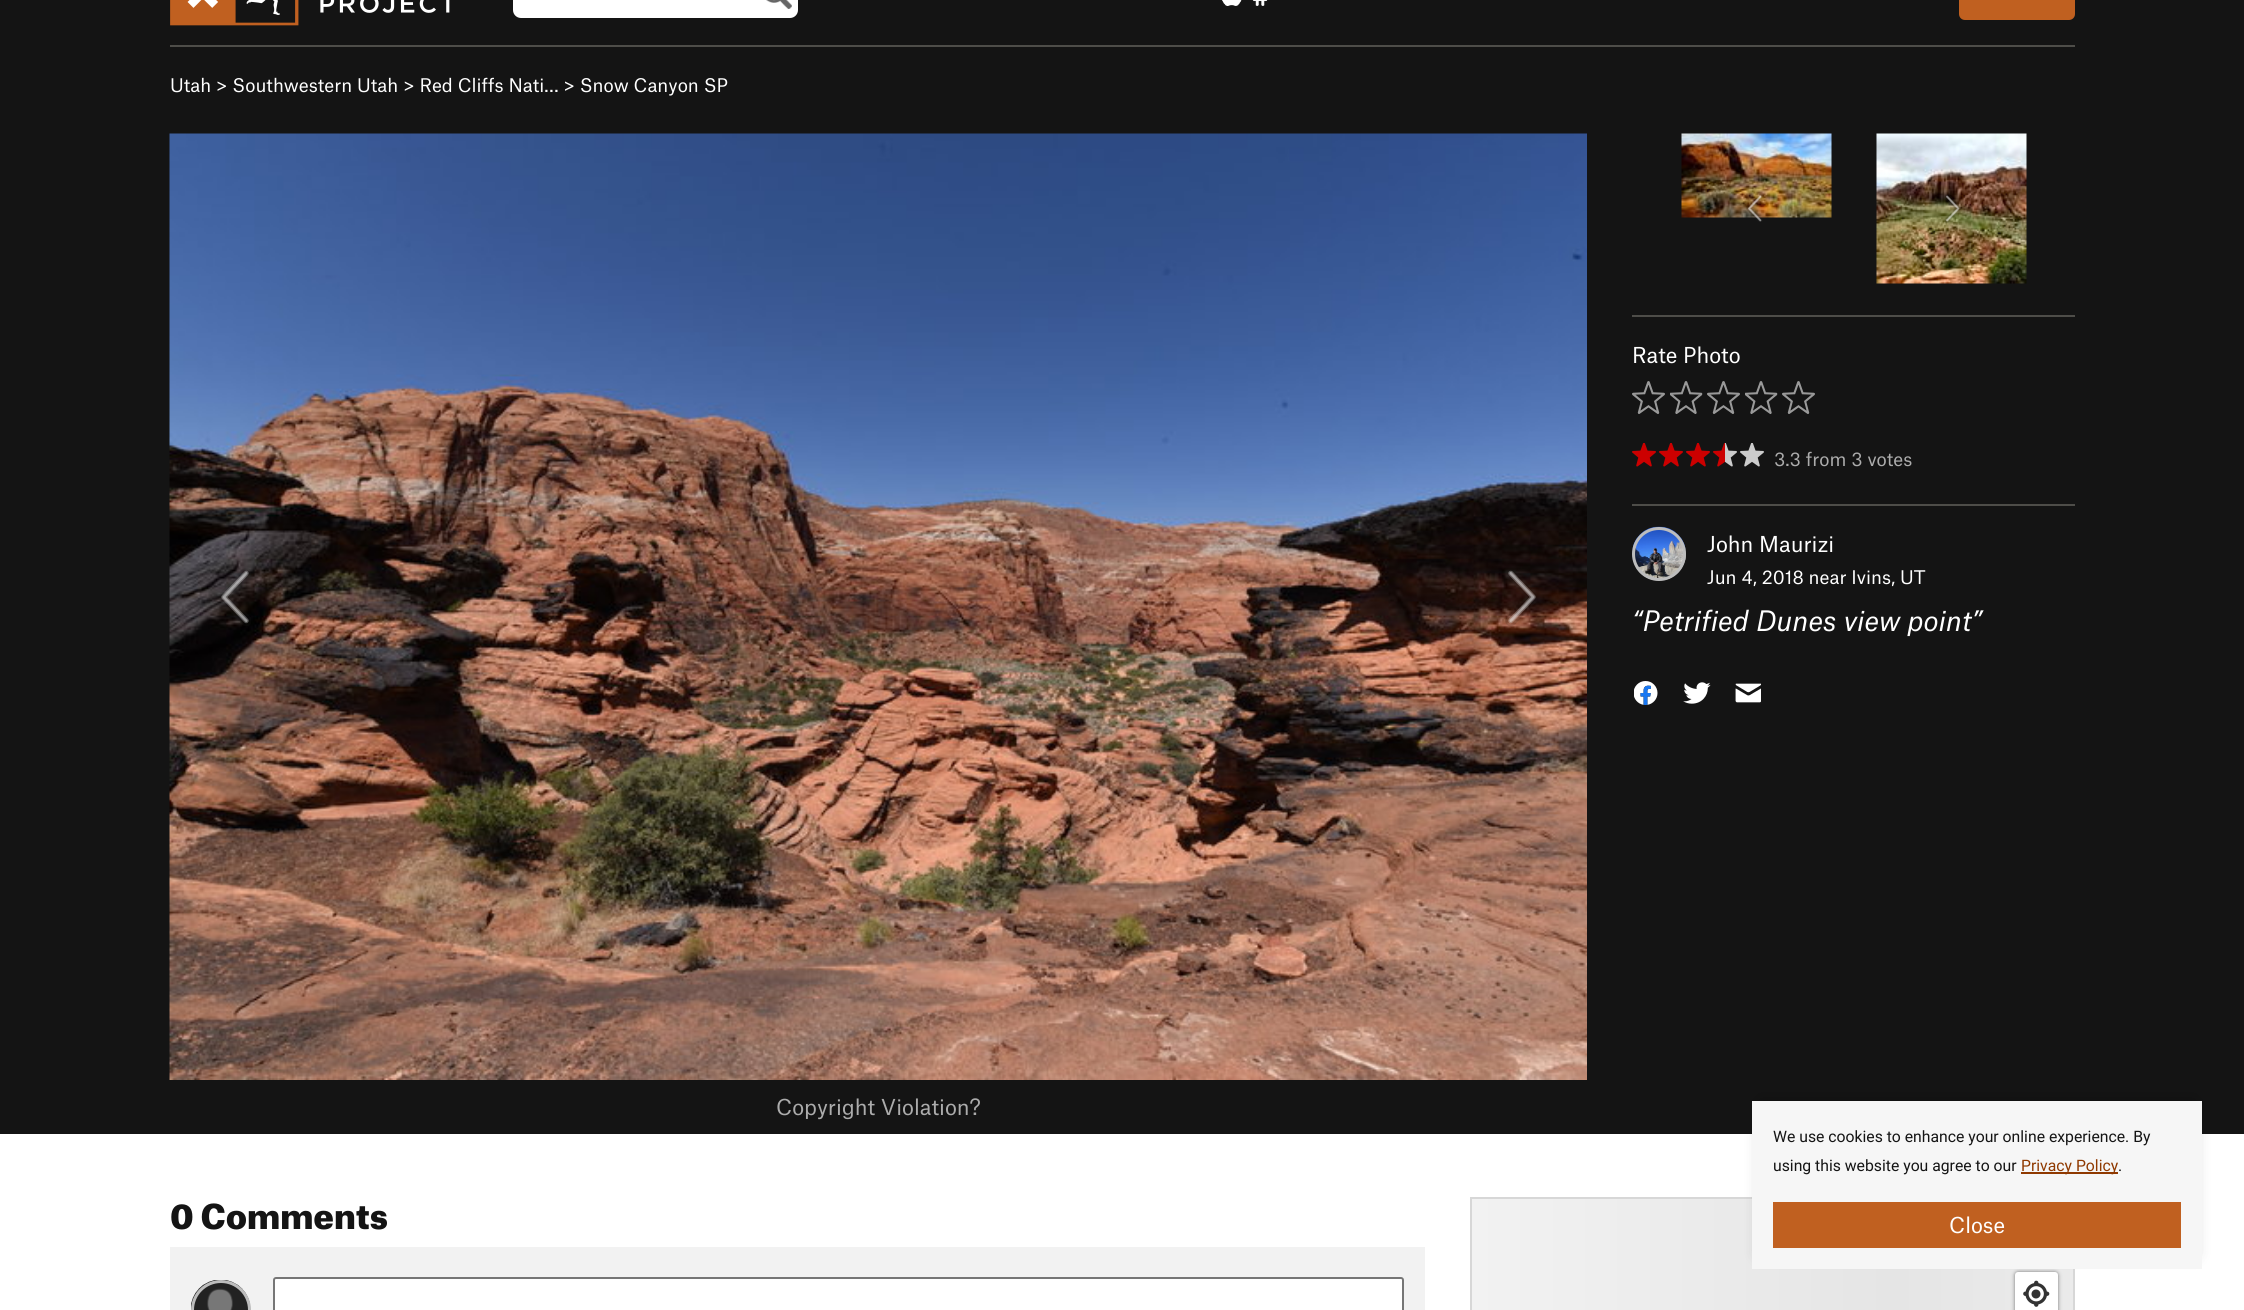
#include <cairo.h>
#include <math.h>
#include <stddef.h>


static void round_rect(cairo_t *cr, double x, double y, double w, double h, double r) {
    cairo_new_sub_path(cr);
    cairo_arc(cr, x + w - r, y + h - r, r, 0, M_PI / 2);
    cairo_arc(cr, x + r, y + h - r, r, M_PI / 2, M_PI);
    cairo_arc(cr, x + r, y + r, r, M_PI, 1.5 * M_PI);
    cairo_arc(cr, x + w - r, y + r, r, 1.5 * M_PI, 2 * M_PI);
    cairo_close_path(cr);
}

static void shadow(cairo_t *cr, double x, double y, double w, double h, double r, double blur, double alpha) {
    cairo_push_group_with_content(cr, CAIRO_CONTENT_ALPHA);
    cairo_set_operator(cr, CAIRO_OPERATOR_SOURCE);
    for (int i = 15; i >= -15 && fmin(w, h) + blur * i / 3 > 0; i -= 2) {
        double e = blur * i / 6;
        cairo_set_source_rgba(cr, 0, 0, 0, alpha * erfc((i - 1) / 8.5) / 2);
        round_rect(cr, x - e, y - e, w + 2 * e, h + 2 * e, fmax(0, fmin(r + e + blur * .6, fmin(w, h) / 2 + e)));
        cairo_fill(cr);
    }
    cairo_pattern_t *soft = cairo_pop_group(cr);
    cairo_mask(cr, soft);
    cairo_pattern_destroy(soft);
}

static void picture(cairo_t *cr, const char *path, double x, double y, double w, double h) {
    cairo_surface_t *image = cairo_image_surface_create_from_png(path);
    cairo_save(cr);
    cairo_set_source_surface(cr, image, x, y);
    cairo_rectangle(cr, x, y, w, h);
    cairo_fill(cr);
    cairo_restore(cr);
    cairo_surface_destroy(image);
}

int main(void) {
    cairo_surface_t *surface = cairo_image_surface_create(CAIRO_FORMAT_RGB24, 2244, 1310);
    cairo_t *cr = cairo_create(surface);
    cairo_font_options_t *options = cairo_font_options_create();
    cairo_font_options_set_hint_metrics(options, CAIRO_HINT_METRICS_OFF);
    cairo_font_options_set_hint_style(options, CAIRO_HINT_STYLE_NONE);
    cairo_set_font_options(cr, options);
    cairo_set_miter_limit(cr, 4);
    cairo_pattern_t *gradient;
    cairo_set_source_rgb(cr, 1, 1, 1);
    cairo_paint(cr);
    cairo_set_source_rgb(cr, 0.082, 0.082, 0.082);
    cairo_rectangle(cr, 0, 0, 2244, 1134);
    cairo_fill(cr);
    picture(cr, "img1.png", 170, 0, 280, 26);
    cairo_set_source_rgb(cr, 1, 1, 1);
    round_rect(cr, 513, -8, 285, 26, 8);
    cairo_fill(cr);
    picture(cr, "img2.png", 766, 0, 26, 9);
    picture(cr, "img3.png", 1222, 0, 20, 6);
    picture(cr, "img4.png", 1252, 0, 16, 6);
    cairo_set_source_rgb(cr, 0.753, 0.376, 0.125);
    round_rect(cr, 1959, -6, 116, 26, 6);
    cairo_fill(cr);
    cairo_set_source_rgb(cr, 0.306, 0.302, 0.286);
    cairo_rectangle(cr, 170, 45, 1905, 2);
    cairo_fill(cr);
    cairo_select_font_face(cr, "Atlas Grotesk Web", CAIRO_FONT_SLANT_NORMAL, CAIRO_FONT_WEIGHT_NORMAL);
    cairo_set_font_size(cr, 18);
    cairo_set_source_rgb(cr, 1, 1, 1);
    cairo_move_to(cr, 170, 92);
    cairo_show_text(cr, "Utah > Southwestern Utah > Red Cliffs Nati… > Snow Canyon SP");
    picture(cr, "img5.png", 1681, 133, 151, 85);
    picture(cr, "img6.png", 1746, 194, 17, 28);
    picture(cr, "img7.png", 1876, 133, 151, 151);
    picture(cr, "img8.png", 1944, 194, 17, 29);
    cairo_set_source_rgb(cr, 0.306, 0.302, 0.286);
    cairo_rectangle(cr, 1632, 315, 443, 2);
    cairo_fill(cr);
    cairo_set_font_size(cr, 21);
    cairo_set_source_rgb(cr, 1, 1, 1);
    cairo_move_to(cr, 1632, 363);
    cairo_show_text(cr, "Rate Photo");
    picture(cr, "img9.png", 1632, 381, 33, 33);
    picture(cr, "img10.png", 1670, 381, 33, 33);
    picture(cr, "img9.png", 1707, 381, 33, 33);
    picture(cr, "img10.png", 1745, 381, 33, 33);
    picture(cr, "img9.png", 1782, 381, 33, 33);
    picture(cr, "img11.png", 1632, 443, 24, 24);
    picture(cr, "img11.png", 1659, 443, 24, 24);
    picture(cr, "img11.png", 1686, 443, 24, 24);
    picture(cr, "img12.png", 1713, 443, 24, 24);
    picture(cr, "img13.png", 1740, 443, 24, 24);
    cairo_set_font_size(cr, 18);
    cairo_set_source_rgb(cr, 0.675, 0.675, 0.675);
    cairo_move_to(cr, 1774, 466);
    cairo_show_text(cr, "3.3 from 3 votes");
    cairo_set_source_rgb(cr, 0.306, 0.302, 0.286);
    cairo_rectangle(cr, 1632, 504, 443, 2);
    cairo_fill(cr);
    picture(cr, "img14.png", 1632, 526, 54, 55);
    cairo_arc(cr, 1659, 554, 25.5, 0, 2 * M_PI);
    cairo_set_source_rgb(cr, 0.741, 0.741, 0.741);
    cairo_set_line_width(cr, 3);
    cairo_stroke(cr);
    cairo_set_font_size(cr, 21);
    cairo_set_source_rgb(cr, 1, 1, 1);
    cairo_move_to(cr, 1707, 552);
    cairo_show_text(cr, "John Maurizi");
    cairo_set_font_size(cr, 18);
    cairo_move_to(cr, 1707, 584);
    cairo_show_text(cr, "Jun 4, 2018 near Ivins, UT");
    cairo_select_font_face(cr, "Atlas Grotesk Web", CAIRO_FONT_SLANT_ITALIC, CAIRO_FONT_WEIGHT_NORMAL);
    cairo_set_font_size(cr, 27);
    cairo_move_to(cr, 1632, 631);
    cairo_show_text(cr, "“Petrified Dunes view point”");
    picture(cr, "img15.png", 1634, 681, 24, 24);
    picture(cr, "img16.png", 1683, 682, 28, 22);
    picture(cr, "img17.png", 1735, 683, 26, 20);
    picture(cr, "img18.png", 169, 133, 1418, 947);
    picture(cr, "img19.png", 220, 568, 31, 58);
    picture(cr, "img20.png", 1505, 570, 32, 57);
    cairo_select_font_face(cr, "Atlas Grotesk Web", CAIRO_FONT_SLANT_NORMAL, CAIRO_FONT_WEIGHT_NORMAL);
    cairo_set_font_size(cr, 21);
    cairo_set_source_rgb(cr, 0.675, 0.675, 0.675);
    cairo_move_to(cr, 776, 1115);
    cairo_show_text(cr, "Copyright Violation?");
    cairo_select_font_face(cr, "Atlas Grotesk Web Black", CAIRO_FONT_SLANT_NORMAL, CAIRO_FONT_WEIGHT_NORMAL);
    cairo_set_font_size(cr, 33);
    cairo_set_source_rgb(cr, 0.082, 0.082, 0.082);
    cairo_move_to(cr, 170, 1229);
    cairo_show_text(cr, "0 Comments");
    cairo_set_source_rgb(cr, 0.949, 0.949, 0.949);
    cairo_rectangle(cr, 170, 1247, 1255, 63);
    cairo_fill(cr);
    picture(cr, "img21.png", 191, 1280, 60, 30);
    cairo_arc(cr, 221, 1310, 28.5, 0, 2 * M_PI);
    cairo_set_source_rgb(cr, 0.741, 0.741, 0.741);
    cairo_stroke(cr);
    cairo_set_source_rgb(cr, 1, 1, 1);
    round_rect(cr, 274, 1278, 1129, 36, 2);
    cairo_fill_preserve(cr);
    cairo_set_source_rgb(cr, 0.463, 0.463, 0.463);
    cairo_set_line_width(cr, 2);
    cairo_stroke(cr);
    gradient = cairo_pattern_create_linear(1472, 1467, 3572, 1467);
    cairo_pattern_add_color_stop_rgba(gradient, 0, 0.949, 0.949, 0.949, 1);
    cairo_pattern_add_color_stop_rgba(gradient, 0.2, 0.898, 0.898, 0.898, 1);
    cairo_pattern_add_color_stop_rgba(gradient, 0.4, 0.949, 0.949, 0.949, 1);
    cairo_pattern_add_color_stop_rgba(gradient, 1, 0.949, 0.949, 0.949, 1);
    cairo_set_source(cr, gradient);
    cairo_pattern_destroy(gradient);
    cairo_rectangle(cr, 1472, 1199, 601, 111);
    cairo_fill(cr);
    cairo_rectangle(cr, 1471, 1198, 603, 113);
    cairo_set_source_rgb(cr, 0.843, 0.843, 0.843);
    cairo_stroke(cr);
    cairo_set_source_rgb(cr, 0, 0, 0);
    shadow(cr, 2015, 1272, 43, 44, 3, 2, 0.5);
    cairo_set_source_rgb(cr, 1, 1, 1);
    round_rect(cr, 2015, 1272, 43, 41, 3);
    cairo_fill(cr);
    picture(cr, "img22.png", 2023, 1280, 27, 27);
    cairo_set_source_rgb(cr, 0, 0, 0);
    shadow(cr, 1760, 1101, 435, 153, 0, 7.5, 0.25);
    cairo_set_source_rgb(cr, 0.961, 0.961, 0.961);
    cairo_rectangle(cr, 1752, 1101, 450, 168);
    cairo_fill(cr);
    cairo_select_font_face(cr, "Roboto", CAIRO_FONT_SLANT_NORMAL, CAIRO_FONT_WEIGHT_NORMAL);
    cairo_set_font_size(cr, 15.75);
    cairo_set_source_rgb(cr, 0.082, 0.082, 0.082);
    cairo_move_to(cr, 1773, 1142);
    cairo_show_text(cr, "We use cookies to enhance your online experience. By");
    cairo_move_to(cr, 1773, 1171);
    cairo_show_text(cr, "using this website you agree to our");
    cairo_set_source_rgb(cr, 0.561, 0.224, 0);
    cairo_rectangle(cr, 2021, 1172, 97, 2);
    cairo_fill(cr);
    cairo_move_to(cr, 2021, 1171);
    cairo_show_text(cr, "Privacy Policy");
    cairo_set_source_rgb(cr, 0.082, 0.082, 0.082);
    cairo_move_to(cr, 2118, 1171);
    cairo_show_text(cr, ".");
    cairo_set_source_rgb(cr, 0.753, 0.376, 0.125);
    cairo_rectangle(cr, 1773, 1202, 408, 46);
    cairo_fill(cr);
    cairo_select_font_face(cr, "Atlas Grotesk Web", CAIRO_FONT_SLANT_NORMAL, CAIRO_FONT_WEIGHT_NORMAL);
    cairo_set_font_size(cr, 21);
    cairo_set_source_rgb(cr, 1, 1, 1);
    cairo_move_to(cr, 1949, 1233);
    cairo_show_text(cr, "Close");
    cairo_surface_write_to_png(surface, "page.png");
    cairo_font_options_destroy(options);
    cairo_destroy(cr);
    cairo_surface_destroy(surface);
    return 0;
}
